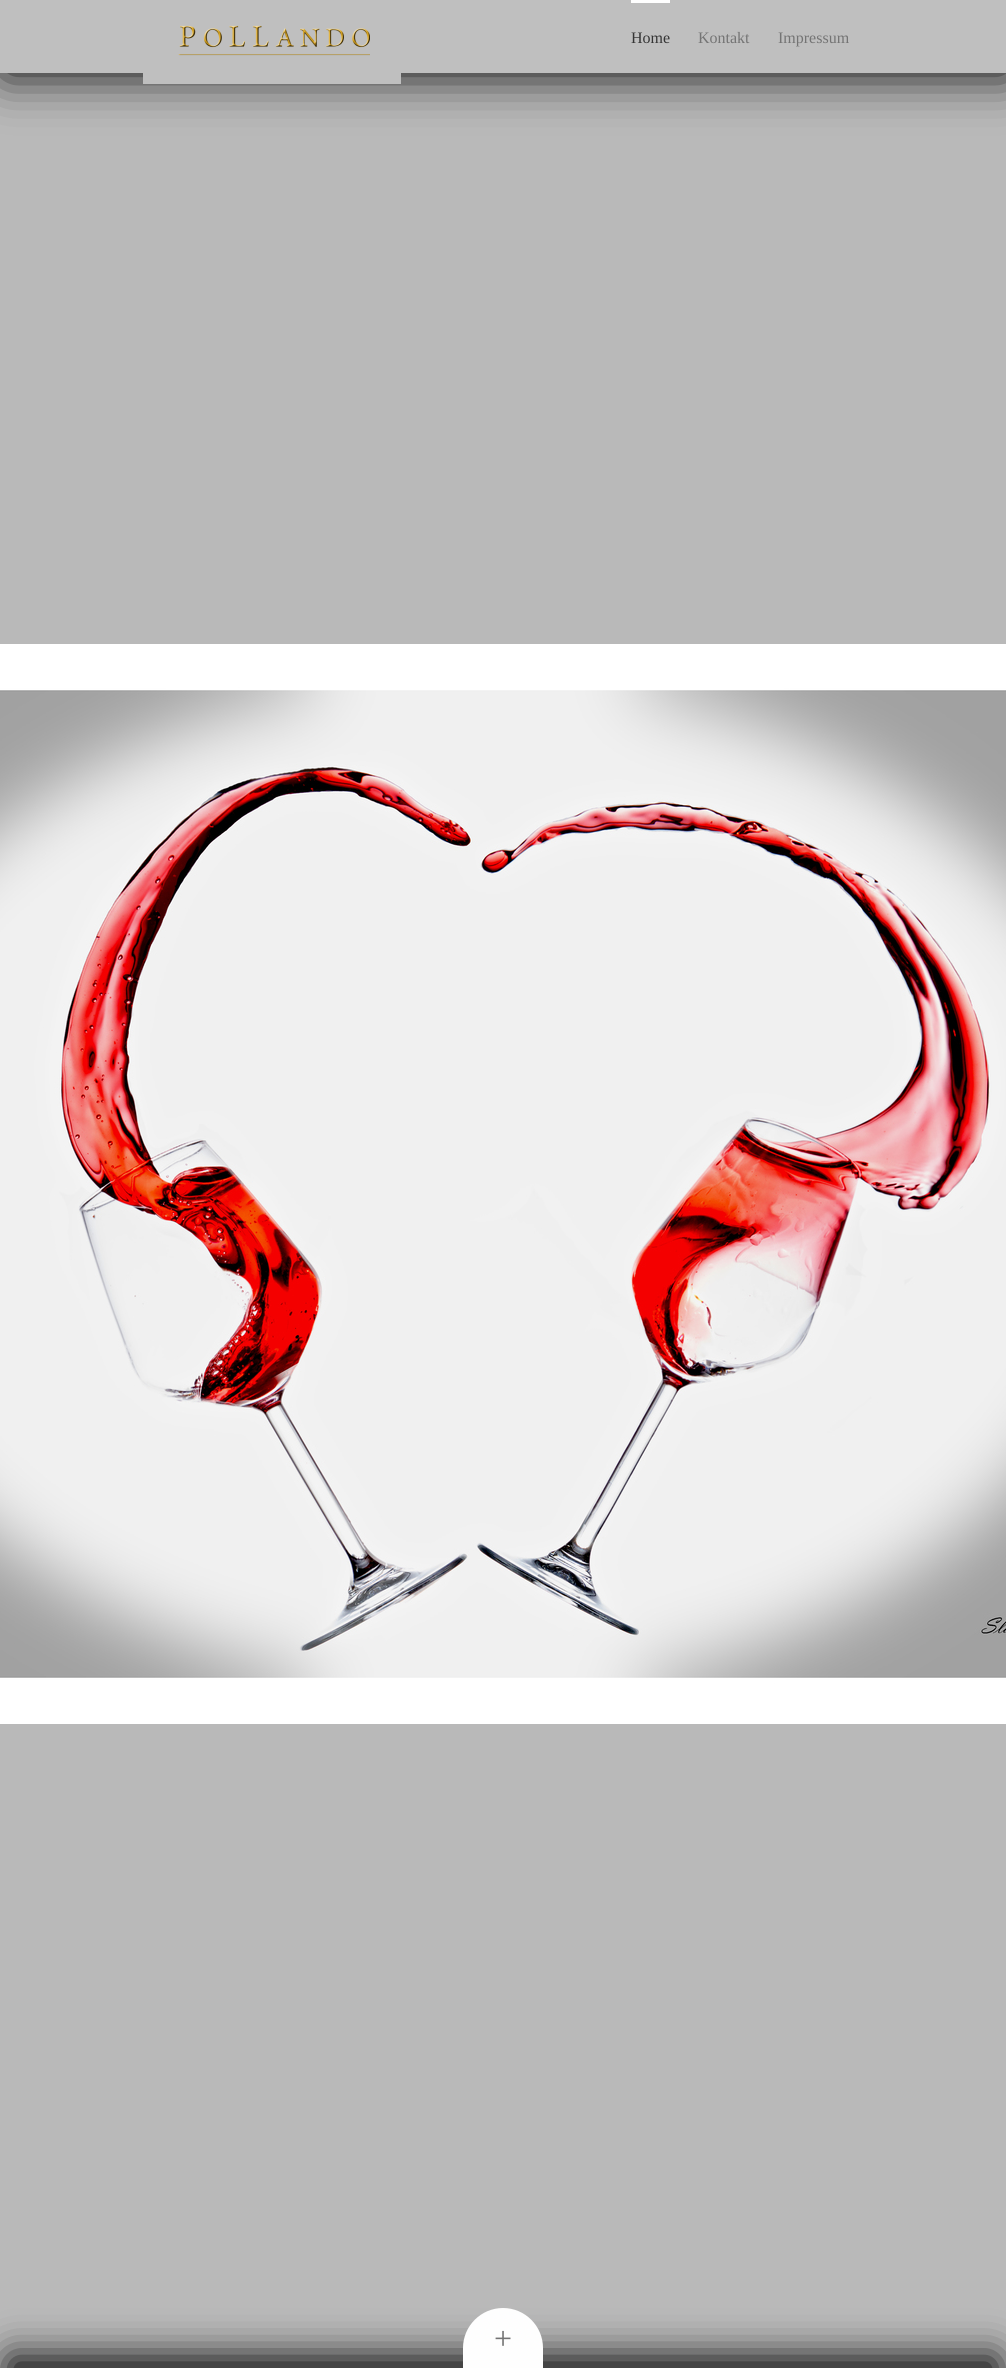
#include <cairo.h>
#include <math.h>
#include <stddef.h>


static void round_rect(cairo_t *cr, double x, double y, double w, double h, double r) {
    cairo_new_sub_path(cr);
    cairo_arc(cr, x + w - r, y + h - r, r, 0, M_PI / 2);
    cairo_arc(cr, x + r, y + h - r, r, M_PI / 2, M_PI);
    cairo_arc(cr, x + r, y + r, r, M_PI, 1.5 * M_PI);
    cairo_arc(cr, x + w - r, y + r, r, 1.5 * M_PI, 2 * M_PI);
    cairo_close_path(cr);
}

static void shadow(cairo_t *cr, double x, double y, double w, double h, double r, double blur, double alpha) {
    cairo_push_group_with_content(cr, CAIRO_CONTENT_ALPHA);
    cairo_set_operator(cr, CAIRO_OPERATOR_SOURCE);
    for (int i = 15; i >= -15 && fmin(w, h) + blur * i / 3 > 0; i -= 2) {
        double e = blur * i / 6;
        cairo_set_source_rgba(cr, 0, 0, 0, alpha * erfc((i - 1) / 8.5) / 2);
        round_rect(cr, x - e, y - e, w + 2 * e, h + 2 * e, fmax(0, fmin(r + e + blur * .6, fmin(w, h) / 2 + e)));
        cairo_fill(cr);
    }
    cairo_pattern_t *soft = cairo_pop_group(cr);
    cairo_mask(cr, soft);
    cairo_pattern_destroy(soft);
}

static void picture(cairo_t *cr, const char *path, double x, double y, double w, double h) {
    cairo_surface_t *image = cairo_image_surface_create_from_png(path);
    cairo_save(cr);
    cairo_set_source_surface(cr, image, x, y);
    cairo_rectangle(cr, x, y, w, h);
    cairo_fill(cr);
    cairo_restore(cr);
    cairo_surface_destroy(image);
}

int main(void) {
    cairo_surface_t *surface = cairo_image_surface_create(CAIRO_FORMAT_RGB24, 1006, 2368);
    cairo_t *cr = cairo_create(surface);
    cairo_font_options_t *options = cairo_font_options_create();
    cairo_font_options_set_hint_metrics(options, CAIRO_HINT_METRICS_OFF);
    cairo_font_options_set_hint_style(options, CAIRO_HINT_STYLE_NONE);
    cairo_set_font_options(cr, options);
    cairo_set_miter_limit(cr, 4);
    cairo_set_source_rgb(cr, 0.725, 0.725, 0.725);
    cairo_paint(cr);
    picture(cr, "img1.png", 0, 644, 1006, 1080);
    cairo_set_source_rgb(cr, 0, 0, 0);
    shadow(cr, 4, 0, 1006, 73, 0, 25, 1);
    cairo_set_source_rgb(cr, 0.749, 0.749, 0.749);
    cairo_rectangle(cr, 0, 0, 1006, 73);
    cairo_fill(cr);
    cairo_rectangle(cr, 143, 73, 258, 11);
    cairo_fill(cr);
    picture(cr, "img2.png", 178, 25, 192, 31);
    cairo_set_source_rgb(cr, 0.996, 0.996, 0.996);
    cairo_rectangle(cr, 631, 0, 39, 3);
    cairo_fill(cr);
    cairo_select_font_face(cr, "Liberation Serif", CAIRO_FONT_SLANT_NORMAL, CAIRO_FONT_WEIGHT_NORMAL);
    cairo_set_font_size(cr, 16);
    cairo_set_source_rgb(cr, 0.208, 0.208, 0.208);
    cairo_move_to(cr, 631, 43);
    cairo_show_text(cr, "Home");
    cairo_set_source_rgb(cr, 0.455, 0.455, 0.455);
    cairo_move_to(cr, 698, 43);
    cairo_show_text(cr, "Kontakt");
    cairo_move_to(cr, 778, 43);
    cairo_show_text(cr, "Impressum");
    cairo_set_source_rgb(cr, 0, 0, 0);
    shadow(cr, 10, 2358, 986, 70, 0, 20, 1);
    cairo_set_source_rgb(cr, 0.996, 0.996, 0.996);
    cairo_new_path(cr);
    cairo_move_to(cr, 503, 2308);
    cairo_curve_to(cr, 525, 2308, 543, 2326, 543, 2348);
    cairo_line_to(cr, 543, 2368);
    cairo_line_to(cr, 463, 2368);
    cairo_line_to(cr, 463, 2348);
    cairo_curve_to(cr, 463, 2326, 481, 2308, 503, 2308);
    cairo_close_path(cr);
    cairo_fill(cr);
    cairo_set_font_size(cr, 32);
    cairo_set_source_rgb(cr, 0.455, 0.455, 0.455);
    cairo_move_to(cr, 494, 2349);
    cairo_show_text(cr, "+");
    cairo_surface_write_to_png(surface, "page.png");
    cairo_font_options_destroy(options);
    cairo_destroy(cr);
    cairo_surface_destroy(surface);
    return 0;
}
